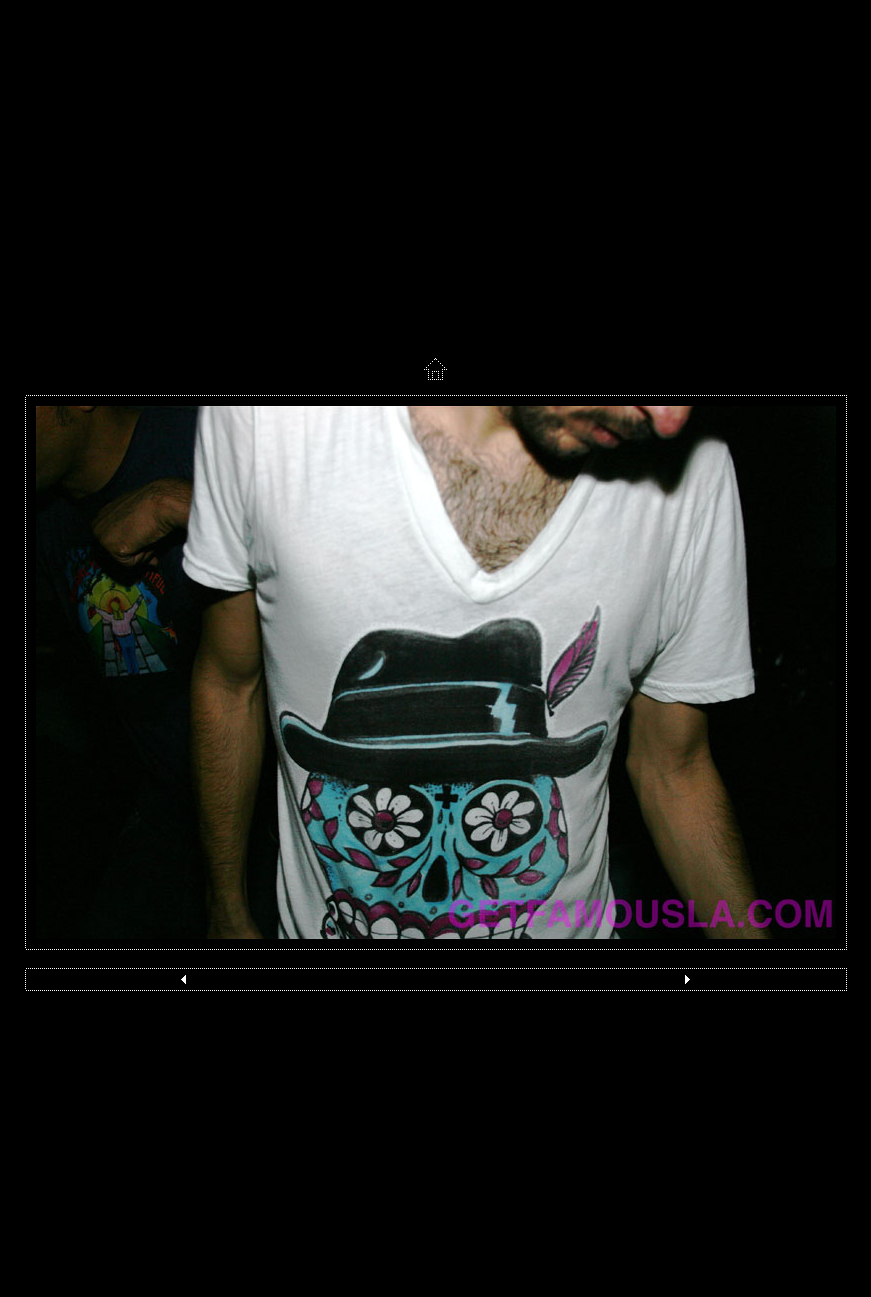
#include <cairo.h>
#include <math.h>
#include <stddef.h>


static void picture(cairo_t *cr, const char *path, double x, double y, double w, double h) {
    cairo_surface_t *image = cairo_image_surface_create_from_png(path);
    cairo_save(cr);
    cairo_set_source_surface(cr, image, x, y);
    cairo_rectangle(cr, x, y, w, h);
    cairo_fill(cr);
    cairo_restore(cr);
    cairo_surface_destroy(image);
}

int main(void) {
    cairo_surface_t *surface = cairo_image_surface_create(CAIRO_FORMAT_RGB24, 871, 1297);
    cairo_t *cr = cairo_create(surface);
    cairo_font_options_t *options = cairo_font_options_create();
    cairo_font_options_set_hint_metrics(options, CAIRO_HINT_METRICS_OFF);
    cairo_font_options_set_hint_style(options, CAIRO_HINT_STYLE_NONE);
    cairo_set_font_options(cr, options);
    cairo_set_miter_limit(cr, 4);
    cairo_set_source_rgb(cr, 0, 0, 0);
    cairo_paint(cr);
    picture(cr, "img1.png", 424, 358, 23, 22);
    picture(cr, "img2.png", 26, 395, 821, 1);
    picture(cr, "img3.png", 25, 397, 1, 551);
    picture(cr, "img4.png", 36, 406, 800, 533);
    picture(cr, "img3.png", 846, 397, 1, 551);
    picture(cr, "img2.png", 26, 949, 821, 1);
    picture(cr, "img2.png", 26, 968, 821, 1);
    picture(cr, "img5.png", 25, 970, 1, 19);
    picture(cr, "img6.png", 181, 975, 5, 9);
    picture(cr, "img7.png", 685, 975, 5, 9);
    picture(cr, "img5.png", 846, 970, 1, 19);
    picture(cr, "img2.png", 26, 990, 821, 1);
    cairo_surface_write_to_png(surface, "page.png");
    cairo_font_options_destroy(options);
    cairo_destroy(cr);
    cairo_surface_destroy(surface);
    return 0;
}
